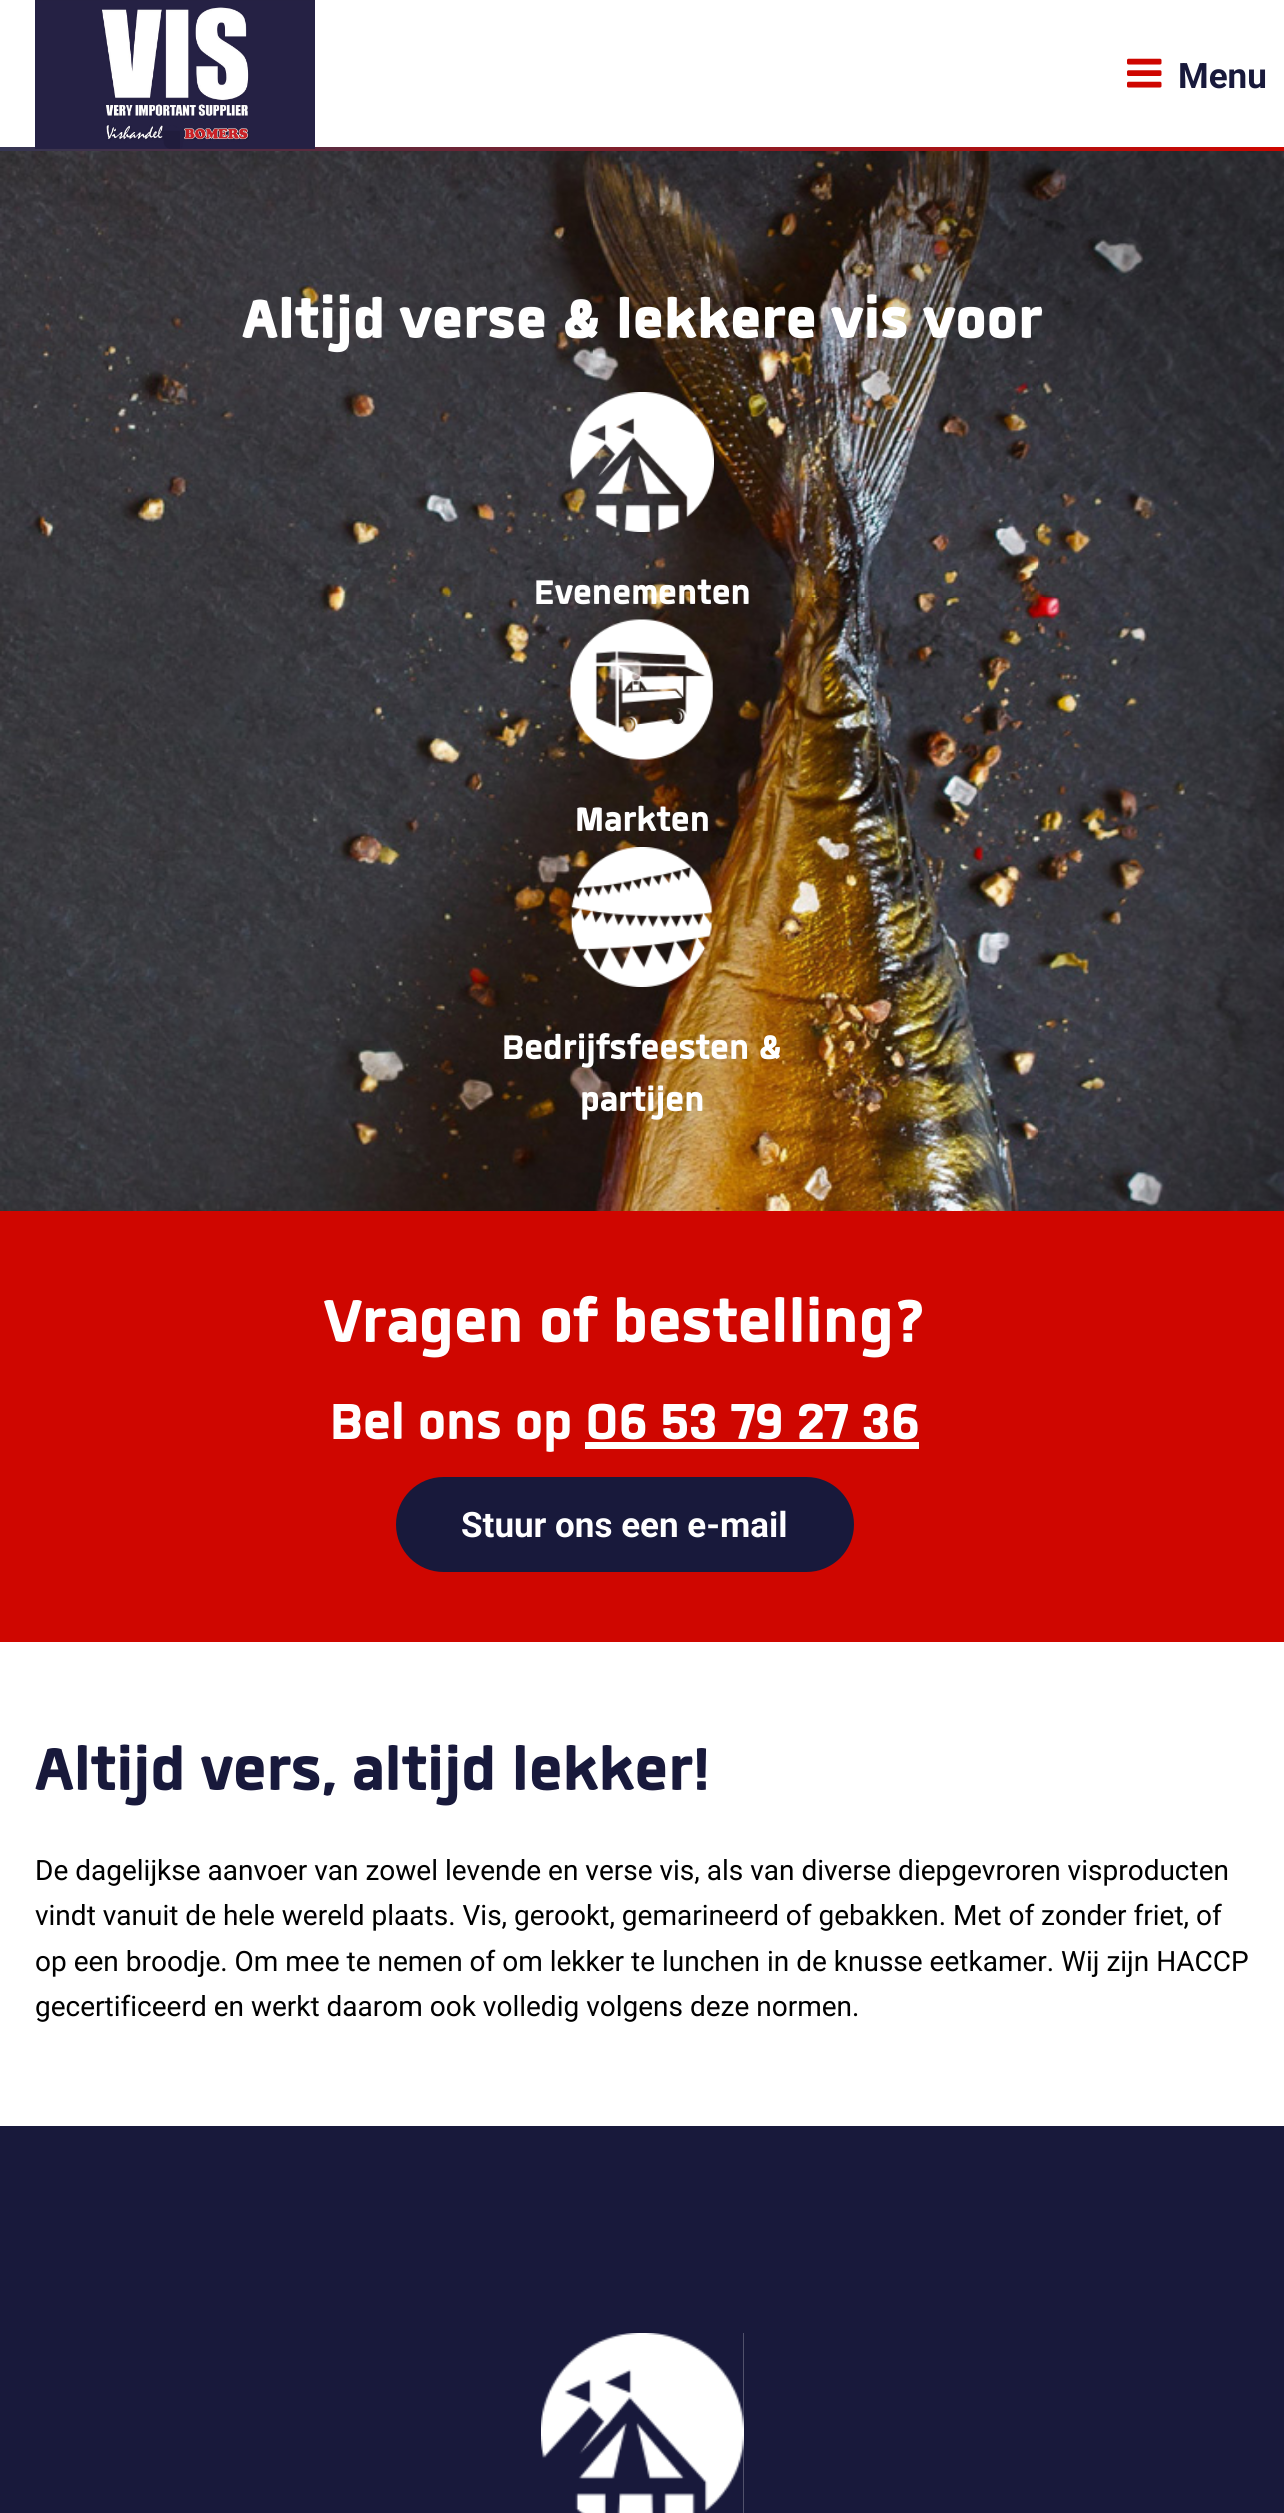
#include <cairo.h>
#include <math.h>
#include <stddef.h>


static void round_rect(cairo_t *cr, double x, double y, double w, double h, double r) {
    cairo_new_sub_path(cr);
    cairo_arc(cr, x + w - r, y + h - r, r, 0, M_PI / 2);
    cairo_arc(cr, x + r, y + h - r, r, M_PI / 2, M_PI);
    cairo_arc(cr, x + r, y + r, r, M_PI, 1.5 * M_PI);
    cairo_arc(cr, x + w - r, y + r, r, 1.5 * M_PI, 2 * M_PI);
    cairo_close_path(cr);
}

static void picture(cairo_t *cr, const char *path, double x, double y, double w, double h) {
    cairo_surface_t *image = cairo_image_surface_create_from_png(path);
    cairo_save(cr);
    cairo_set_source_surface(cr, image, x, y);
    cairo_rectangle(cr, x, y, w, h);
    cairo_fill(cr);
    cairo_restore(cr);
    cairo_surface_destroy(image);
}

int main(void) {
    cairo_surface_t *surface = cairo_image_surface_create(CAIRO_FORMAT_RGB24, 1284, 2513);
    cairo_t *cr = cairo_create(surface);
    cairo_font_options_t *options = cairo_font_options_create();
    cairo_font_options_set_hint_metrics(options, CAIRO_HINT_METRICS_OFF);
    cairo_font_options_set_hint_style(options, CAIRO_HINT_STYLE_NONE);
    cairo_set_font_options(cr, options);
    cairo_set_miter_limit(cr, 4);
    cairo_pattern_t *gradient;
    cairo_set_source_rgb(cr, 1, 1, 1);
    cairo_paint(cr);
    gradient = cairo_pattern_create_linear(0, 149, 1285, 149);
    cairo_pattern_add_color_stop_rgba(gradient, 0, 0.208, 0.212, 0.325, 1);
    cairo_pattern_add_color_stop_rgba(gradient, 1, 0.812, 0.027, 0, 1);
    cairo_set_source(cr, gradient);
    cairo_pattern_destroy(gradient);
    cairo_rectangle(cr, 0, 147, 1284, 4);
    cairo_fill(cr);
    picture(cr, "img1.png", 35, 0, 280, 149);
    picture(cr, "img2.png", 1127, 58, 35, 30);
    cairo_select_font_face(cr, "Roboto", CAIRO_FONT_SLANT_NORMAL, CAIRO_FONT_WEIGHT_BOLD);
    cairo_set_font_size(cr, 35);
    cairo_set_source_rgb(cr, 0.094, 0.098, 0.231);
    cairo_move_to(cr, 1178, 88);
    cairo_show_text(cr, "Menu");
    picture(cr, "img3.png", 0, 151, 1284, 1060);
    cairo_select_font_face(cr, "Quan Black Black", CAIRO_FONT_SLANT_NORMAL, CAIRO_FONT_WEIGHT_NORMAL);
    cairo_set_font_size(cr, 77);
    cairo_set_source_rgb(cr, 1, 1, 1);
    cairo_move_to(cr, 242, 338);
    cairo_show_text(cr, "Altijd verse & lekkere vis voor");
    picture(cr, "img4.png", 570, 392, 144, 140);
    cairo_select_font_face(cr, "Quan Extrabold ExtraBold", CAIRO_FONT_SLANT_NORMAL, CAIRO_FONT_WEIGHT_NORMAL);
    cairo_set_font_size(cr, 47.25);
    cairo_move_to(cr, 534, 604);
    cairo_show_text(cr, "Evenementen");
    picture(cr, "img5.png", 570, 619, 143, 141);
    cairo_move_to(cr, 575, 831);
    cairo_show_text(cr, "Markten");
    picture(cr, "img6.png", 570, 847, 143, 140);
    cairo_move_to(cr, 502, 1059);
    cairo_show_text(cr, "Bedrijfsfeesten &");
    cairo_move_to(cr, 580, 1111);
    cairo_show_text(cr, "partijen");
    cairo_set_source_rgb(cr, 0.812, 0.024, 0);
    cairo_rectangle(cr, 0, 1211, 1284, 431);
    cairo_fill(cr);
    cairo_set_font_size(cr, 84);
    cairo_set_source_rgb(cr, 1, 1, 1);
    cairo_move_to(cr, 324, 1342);
    cairo_show_text(cr, "Vragen of bestelling?");
    cairo_set_font_size(cr, 70);
    cairo_move_to(cr, 330, 1439);
    cairo_show_text(cr, "Bel ons op 06 53 79 27 36");
    cairo_rectangle(cr, 585, 1442, 334, 7);
    cairo_fill(cr);
    cairo_set_source_rgb(cr, 0.094, 0.098, 0.231);
    round_rect(cr, 396, 1477, 458, 95, 47.5);
    cairo_fill(cr);
    cairo_select_font_face(cr, "Roboto", CAIRO_FONT_SLANT_NORMAL, CAIRO_FONT_WEIGHT_BOLD);
    cairo_set_font_size(cr, 35);
    cairo_set_source_rgb(cr, 1, 1, 1);
    cairo_move_to(cr, 461, 1537);
    cairo_show_text(cr, "Stuur ons een e-mail");
    cairo_select_font_face(cr, "Quan Extrabold ExtraBold", CAIRO_FONT_SLANT_NORMAL, CAIRO_FONT_WEIGHT_NORMAL);
    cairo_set_font_size(cr, 84);
    cairo_set_source_rgb(cr, 0.094, 0.098, 0.231);
    cairo_move_to(cr, 35, 1790);
    cairo_show_text(cr, "Altijd vers, altijd lekker!");
    cairo_select_font_face(cr, "Roboto", CAIRO_FONT_SLANT_NORMAL, CAIRO_FONT_WEIGHT_NORMAL);
    cairo_set_font_size(cr, 28);
    cairo_set_source_rgb(cr, 0, 0, 0);
    cairo_move_to(cr, 35, 1880);
    cairo_show_text(cr, "De dagelijkse aanvoer van zowel levende en verse vis, als van diverse diepgevroren visproducten");
    cairo_move_to(cr, 35, 1925);
    cairo_show_text(cr, "vindt vanuit de hele wereld plaats. Vis, gerookt, gemarineerd of gebakken. Met of zonder friet, of");
    cairo_move_to(cr, 35, 1971);
    cairo_show_text(cr, "op een broodje. Om mee te nemen of om lekker te lunchen in de knusse eetkamer. Wij zijn HACCP");
    cairo_move_to(cr, 35, 2016);
    cairo_show_text(cr, "gecertificeerd en werkt daarom ook volledig volgens deze normen.");
    cairo_set_source_rgb(cr, 0.094, 0.098, 0.231);
    cairo_rectangle(cr, 0, 2126, 1284, 387);
    cairo_fill(cr);
    cairo_set_source_rgb(cr, 1, 1, 1);
    cairo_rectangle(cr, 541, 2333, 203, 180);
    cairo_fill(cr);
    picture(cr, "img7.png", 541, 2333, 203, 180);
    cairo_surface_write_to_png(surface, "page.png");
    cairo_font_options_destroy(options);
    cairo_destroy(cr);
    cairo_surface_destroy(surface);
    return 0;
}
